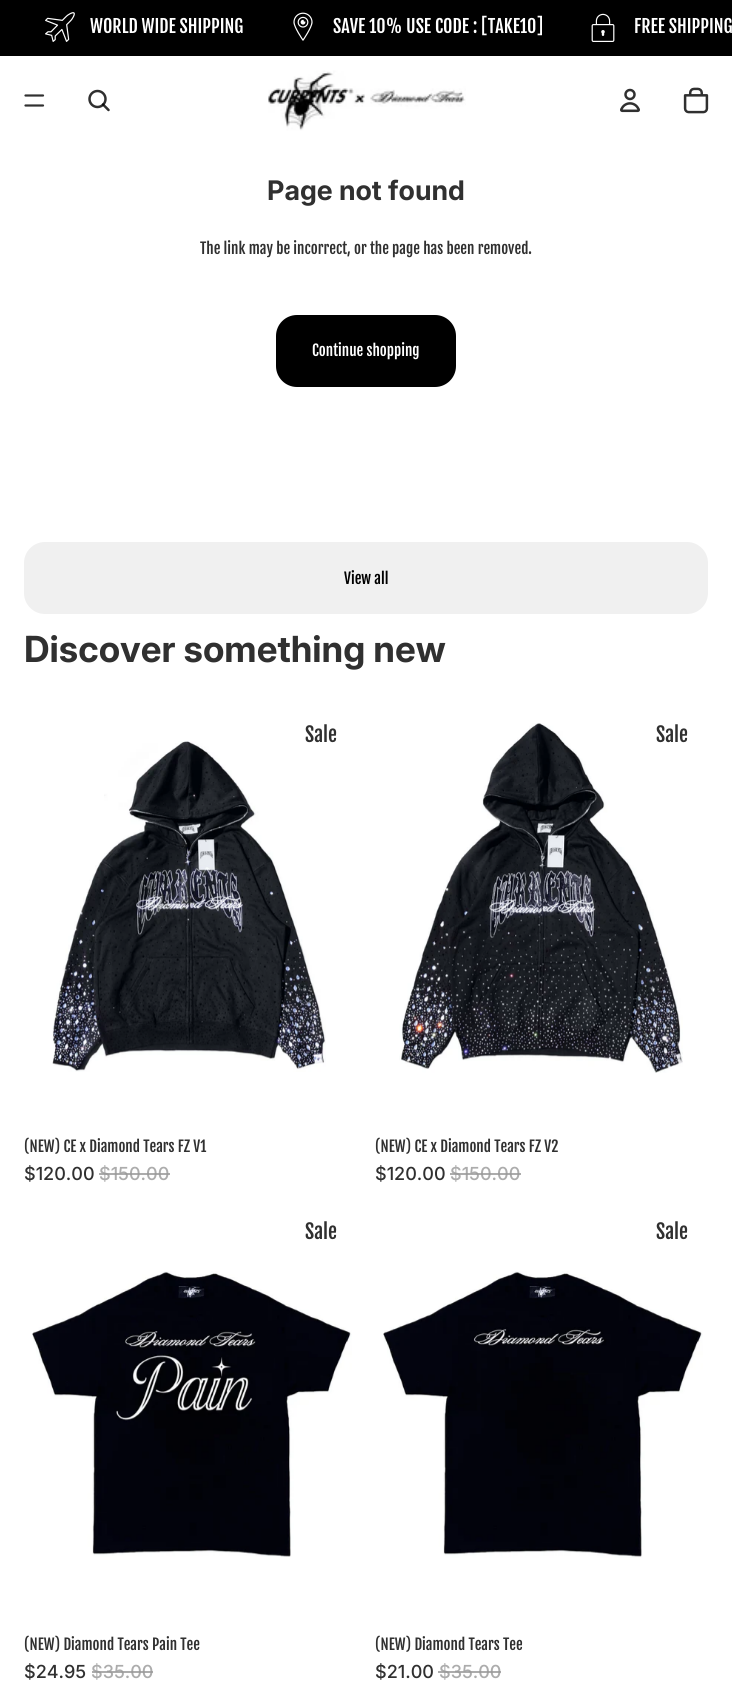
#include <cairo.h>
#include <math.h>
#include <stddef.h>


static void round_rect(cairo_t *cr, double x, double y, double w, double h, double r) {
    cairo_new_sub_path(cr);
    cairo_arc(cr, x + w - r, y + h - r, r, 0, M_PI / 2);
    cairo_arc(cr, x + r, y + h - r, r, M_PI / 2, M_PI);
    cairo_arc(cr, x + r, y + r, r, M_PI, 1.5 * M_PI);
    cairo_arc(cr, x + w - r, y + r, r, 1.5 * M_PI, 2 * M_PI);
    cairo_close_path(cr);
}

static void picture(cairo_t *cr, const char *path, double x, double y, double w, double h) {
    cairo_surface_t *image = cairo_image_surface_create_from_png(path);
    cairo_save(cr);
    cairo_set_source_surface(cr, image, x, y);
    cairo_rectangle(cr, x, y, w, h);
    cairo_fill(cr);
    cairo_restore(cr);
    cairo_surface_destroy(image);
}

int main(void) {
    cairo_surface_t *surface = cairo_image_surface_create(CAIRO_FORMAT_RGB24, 732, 1692);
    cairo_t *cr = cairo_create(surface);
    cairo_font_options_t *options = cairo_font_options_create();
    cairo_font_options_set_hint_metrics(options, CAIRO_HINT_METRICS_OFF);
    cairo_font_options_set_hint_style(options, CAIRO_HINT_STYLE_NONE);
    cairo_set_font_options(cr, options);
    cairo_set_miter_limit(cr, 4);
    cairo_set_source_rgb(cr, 1, 1, 1);
    cairo_paint(cr);
    cairo_set_source_rgb(cr, 0, 0, 0);
    cairo_rectangle(cr, 0, 0, 732, 56);
    cairo_fill(cr);
    picture(cr, "img1.png", 45, 12, 30, 30);
    cairo_select_font_face(cr, "Fjalla One", CAIRO_FONT_SLANT_NORMAL, CAIRO_FONT_WEIGHT_NORMAL);
    cairo_set_font_size(cr, 18);
    cairo_set_source_rgb(cr, 1, 1, 1);
    cairo_move_to(cr, 90, 33);
    cairo_show_text(cr, "WORLD WIDE SHIPPING");
    picture(cr, "img2.png", 293, 12, 20, 29);
    cairo_move_to(cr, 333, 33);
    cairo_show_text(cr, "SAVE 10% USE CODE : [TAKE10]");
    picture(cr, "img3.png", 591, 13, 24, 29);
    cairo_move_to(cr, 634, 33);
    cairo_show_text(cr, "FREE SHIPPING");
    cairo_new_path(cr);
    cairo_move_to(cr, 25.5, 95.5);
    cairo_line_to(cr, 43, 95.5);
    cairo_move_to(cr, 25.5, 105.5);
    cairo_line_to(cr, 43, 105.5);
    cairo_set_source_rgb(cr, 0.188, 0.188, 0.188);
    cairo_set_line_width(cr, 2.2);
    cairo_set_line_cap(cr, CAIRO_LINE_CAP_ROUND);
    cairo_stroke(cr);
    cairo_arc(cr, 97.5, 99, 8, 0, 2 * M_PI);
    cairo_set_line_width(cr, 2.5);
    cairo_set_line_cap(cr, CAIRO_LINE_CAP_BUTT);
    cairo_stroke(cr);
    cairo_new_path(cr);
    cairo_move_to(cr, 103, 104.5);
    cairo_line_to(cr, 108.5, 110);
    cairo_set_source_rgba(cr, 0, 0, 0, 0.81);
    cairo_set_line_cap(cr, CAIRO_LINE_CAP_ROUND);
    cairo_set_line_join(cr, CAIRO_LINE_JOIN_ROUND);
    cairo_stroke(cr);
    picture(cr, "img4.png", 268, 70, 198, 61);
    picture(cr, "img5.png", 620, 88, 20, 25);
    picture(cr, "img6.png", 683, 87, 26, 27);
    cairo_select_font_face(cr, "Inter", CAIRO_FONT_SLANT_NORMAL, CAIRO_FONT_WEIGHT_BOLD);
    cairo_set_font_size(cr, 27);
    cairo_set_source_rgb(cr, 0.188, 0.188, 0.188);
    cairo_move_to(cr, 267, 200);
    cairo_show_text(cr, "Page not found");
    cairo_select_font_face(cr, "Fjalla One", CAIRO_FONT_SLANT_NORMAL, CAIRO_FONT_WEIGHT_NORMAL);
    cairo_set_font_size(cr, 15);
    cairo_move_to(cr, 200, 254);
    cairo_show_text(cr, "The link may be incorrect, or the page has been removed.");
    cairo_set_source_rgb(cr, 0, 0, 0);
    round_rect(cr, 276, 315, 180, 72, 21);
    cairo_fill(cr);
    cairo_set_source_rgb(cr, 1, 1, 1);
    cairo_move_to(cr, 312, 356);
    cairo_show_text(cr, "Continue shopping");
    cairo_set_source_rgb(cr, 0.941, 0.941, 0.941);
    round_rect(cr, 24, 542, 684, 72, 21);
    cairo_fill(cr);
    cairo_set_source_rgb(cr, 0, 0, 0);
    cairo_move_to(cr, 344, 584);
    cairo_show_text(cr, "View all");
    cairo_select_font_face(cr, "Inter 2", CAIRO_FONT_SLANT_NORMAL, CAIRO_FONT_WEIGHT_BOLD);
    cairo_set_font_size(cr, 36);
    cairo_set_source_rgb(cr, 0.188, 0.188, 0.188);
    cairo_move_to(cr, 24, 662);
    cairo_show_text(cr, "Discover something new");
    picture(cr, "img7.png", 52, 741, 274, 331);
    cairo_select_font_face(cr, "Fjalla One", CAIRO_FONT_SLANT_NORMAL, CAIRO_FONT_WEIGHT_NORMAL);
    cairo_set_font_size(cr, 20);
    cairo_move_to(cr, 305, 742);
    cairo_show_text(cr, "Sale");
    cairo_set_font_size(cr, 15);
    cairo_move_to(cr, 24, 1152);
    cairo_show_text(cr, "(NEW) CE x Diamond Tears FZ V1");
    cairo_select_font_face(cr, "Inter Medium", CAIRO_FONT_SLANT_NORMAL, CAIRO_FONT_WEIGHT_NORMAL);
    cairo_set_font_size(cr, 18);
    cairo_move_to(cr, 24, 1180);
    cairo_show_text(cr, "$120.00");
    cairo_set_source_rgb(cr, 0.675, 0.675, 0.675);
    cairo_move_to(cr, 99, 1180);
    cairo_show_text(cr, "$150.00");
    cairo_set_source_rgba(cr, 0.6, 0.6, 0.6, 0.81);
    cairo_rectangle(cr, 99, 1173, 71, 2);
    cairo_fill(cr);
    picture(cr, "img8.png", 399, 723, 284, 350);
    cairo_select_font_face(cr, "Fjalla One", CAIRO_FONT_SLANT_NORMAL, CAIRO_FONT_WEIGHT_NORMAL);
    cairo_set_font_size(cr, 20);
    cairo_set_source_rgb(cr, 0.188, 0.188, 0.188);
    cairo_move_to(cr, 656, 742);
    cairo_show_text(cr, "Sale");
    cairo_set_font_size(cr, 15);
    cairo_move_to(cr, 375, 1152);
    cairo_show_text(cr, "(NEW) CE x Diamond Tears FZ V2");
    cairo_select_font_face(cr, "Inter Medium", CAIRO_FONT_SLANT_NORMAL, CAIRO_FONT_WEIGHT_NORMAL);
    cairo_set_font_size(cr, 18);
    cairo_move_to(cr, 375, 1180);
    cairo_show_text(cr, "$120.00");
    cairo_set_source_rgb(cr, 0.675, 0.675, 0.675);
    cairo_move_to(cr, 450, 1180);
    cairo_show_text(cr, "$150.00");
    cairo_set_source_rgba(cr, 0.6, 0.6, 0.6, 0.81);
    cairo_rectangle(cr, 450, 1173, 71, 2);
    cairo_fill(cr);
    cairo_select_font_face(cr, "Fjalla One", CAIRO_FONT_SLANT_NORMAL, CAIRO_FONT_WEIGHT_NORMAL);
    cairo_set_font_size(cr, 20);
    cairo_set_source_rgb(cr, 0.188, 0.188, 0.188);
    cairo_move_to(cr, 305, 1239);
    cairo_show_text(cr, "Sale");
    picture(cr, "img9.png", 32, 1271, 320, 286);
    cairo_set_font_size(cr, 15);
    cairo_move_to(cr, 24, 1650);
    cairo_show_text(cr, "(NEW) Diamond Tears Pain Tee");
    cairo_select_font_face(cr, "Inter Medium", CAIRO_FONT_SLANT_NORMAL, CAIRO_FONT_WEIGHT_NORMAL);
    cairo_set_font_size(cr, 18);
    cairo_move_to(cr, 24, 1678);
    cairo_show_text(cr, "$24.95");
    cairo_set_source_rgb(cr, 0.675, 0.675, 0.675);
    cairo_move_to(cr, 91, 1678);
    cairo_show_text(cr, "$35.00");
    cairo_set_source_rgba(cr, 0.6, 0.6, 0.6, 0.81);
    cairo_rectangle(cr, 92, 1671, 61, 2);
    cairo_fill(cr);
    cairo_select_font_face(cr, "Fjalla One", CAIRO_FONT_SLANT_NORMAL, CAIRO_FONT_WEIGHT_NORMAL);
    cairo_set_font_size(cr, 20);
    cairo_set_source_rgb(cr, 0.188, 0.188, 0.188);
    cairo_move_to(cr, 656, 1239);
    cairo_show_text(cr, "Sale");
    picture(cr, "img10.png", 383, 1271, 320, 287);
    cairo_set_font_size(cr, 15);
    cairo_move_to(cr, 375, 1650);
    cairo_show_text(cr, "(NEW) Diamond Tears Tee");
    cairo_select_font_face(cr, "Inter Medium", CAIRO_FONT_SLANT_NORMAL, CAIRO_FONT_WEIGHT_NORMAL);
    cairo_set_font_size(cr, 18);
    cairo_move_to(cr, 375, 1678);
    cairo_show_text(cr, "$21.00");
    cairo_set_source_rgb(cr, 0.675, 0.675, 0.675);
    cairo_move_to(cr, 439, 1678);
    cairo_show_text(cr, "$35.00");
    cairo_set_source_rgba(cr, 0.6, 0.6, 0.6, 0.81);
    cairo_rectangle(cr, 438, 1671, 63, 2);
    cairo_fill(cr);
    cairo_surface_write_to_png(surface, "page.png");
    cairo_font_options_destroy(options);
    cairo_destroy(cr);
    cairo_surface_destroy(surface);
    return 0;
}
